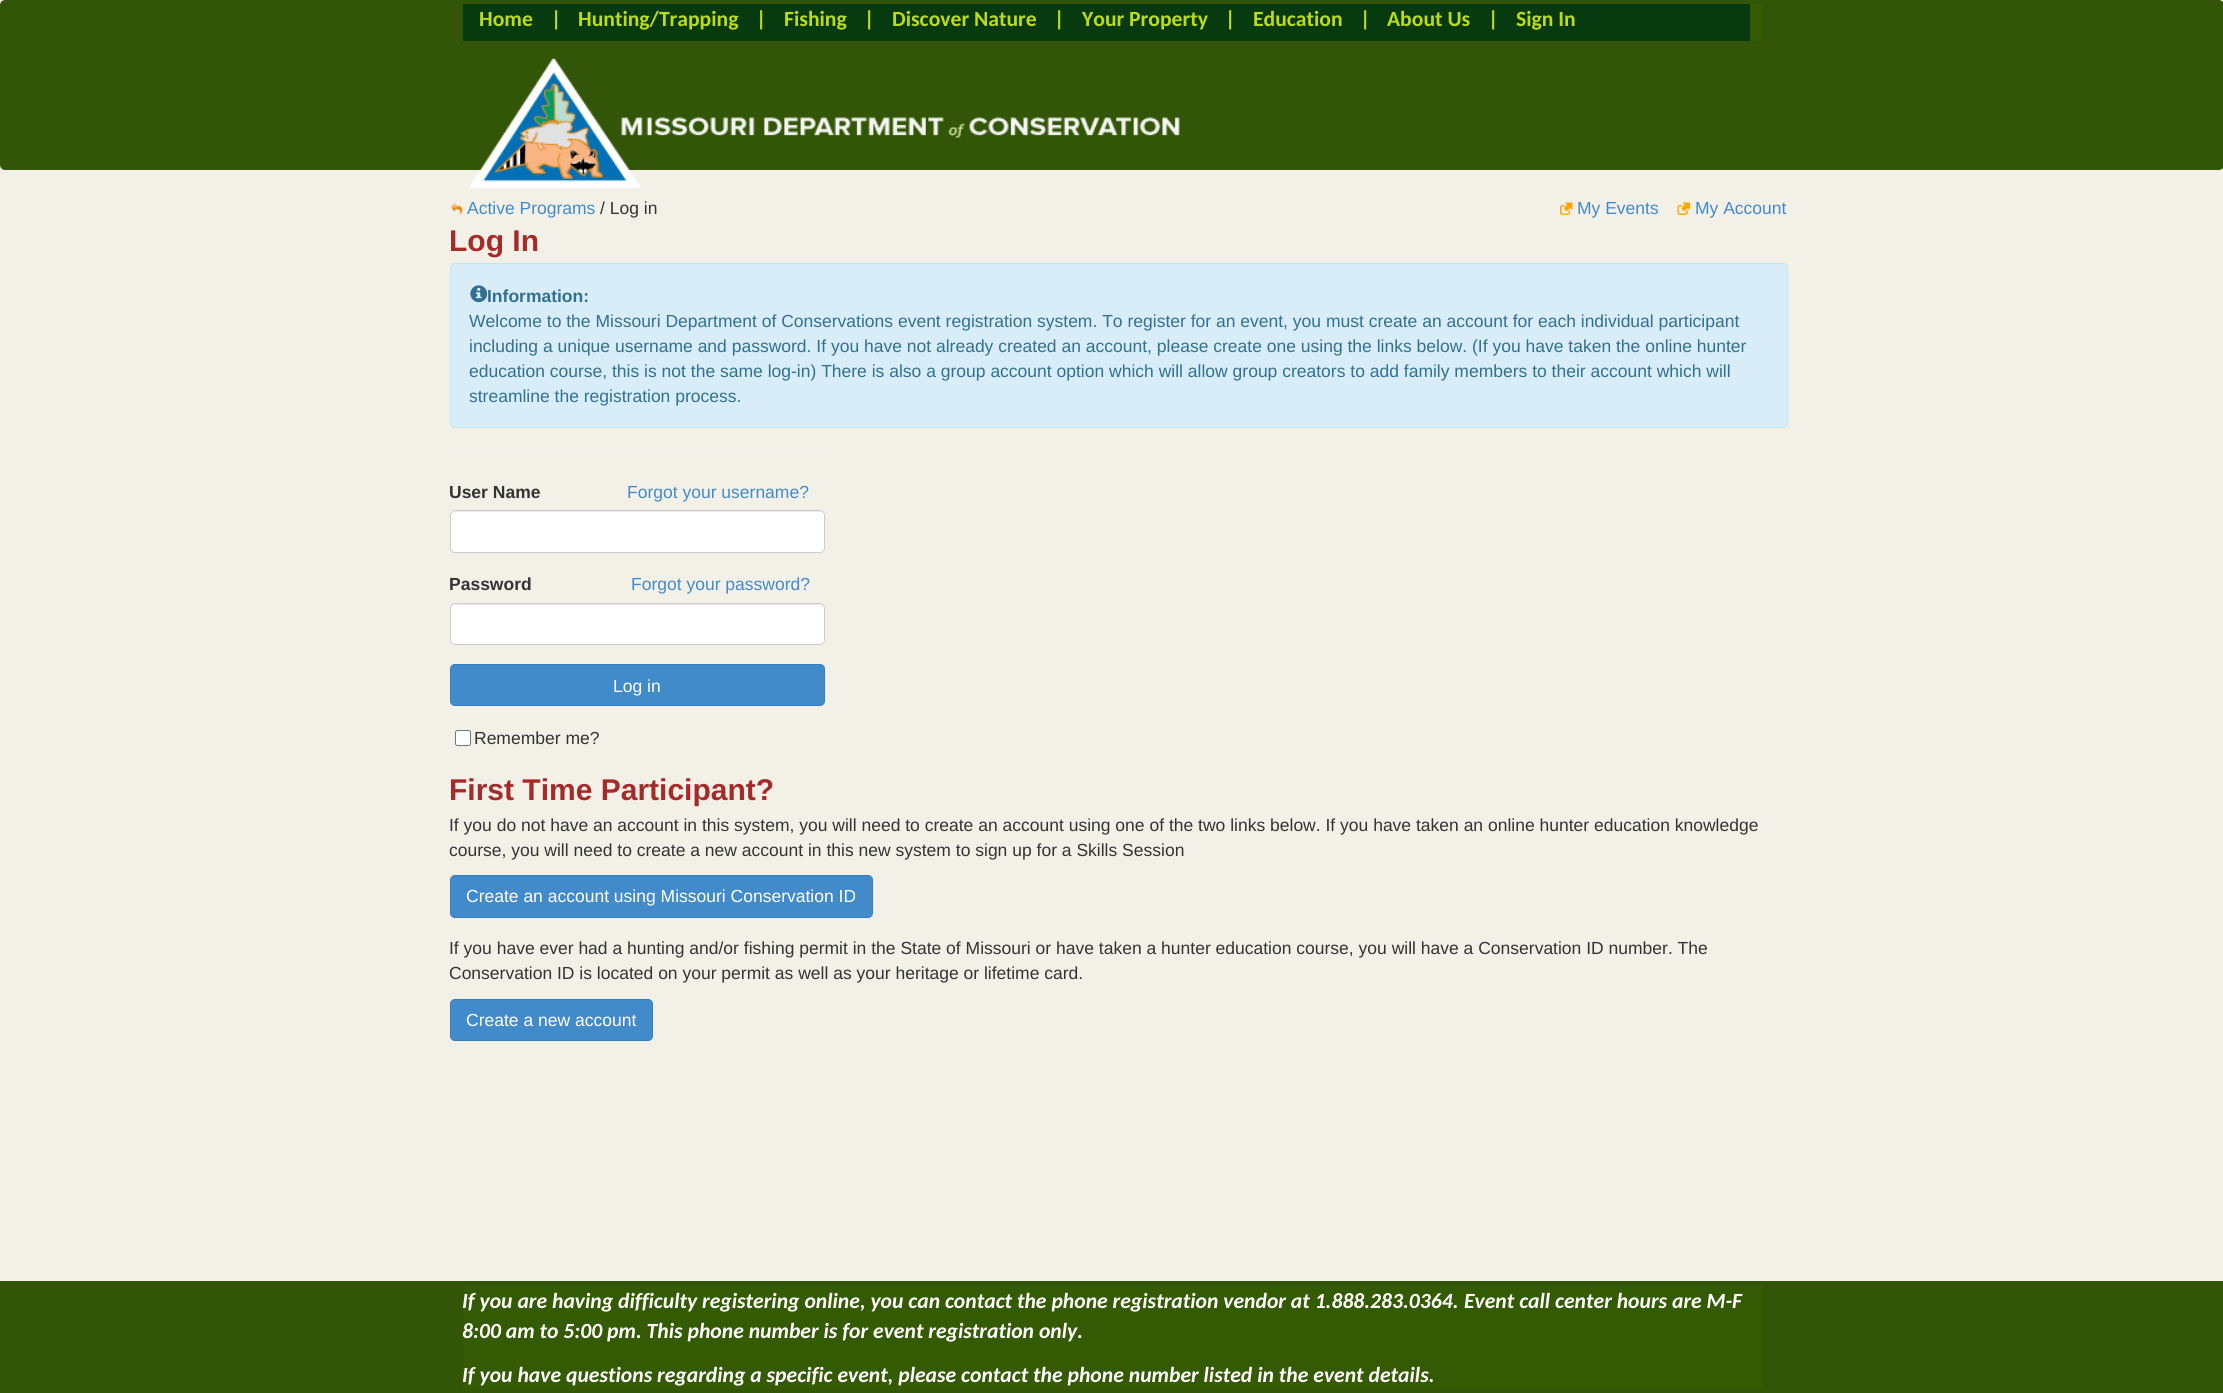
#include <cairo.h>
#include <math.h>
#include <stddef.h>


static void round_rect(cairo_t *cr, double x, double y, double w, double h, double r) {
    cairo_new_sub_path(cr);
    cairo_arc(cr, x + w - r, y + h - r, r, 0, M_PI / 2);
    cairo_arc(cr, x + r, y + h - r, r, M_PI / 2, M_PI);
    cairo_arc(cr, x + r, y + r, r, M_PI, 1.5 * M_PI);
    cairo_arc(cr, x + w - r, y + r, r, 1.5 * M_PI, 2 * M_PI);
    cairo_close_path(cr);
}

static void picture(cairo_t *cr, const char *path, double x, double y, double w, double h) {
    cairo_surface_t *image = cairo_image_surface_create_from_png(path);
    cairo_save(cr);
    cairo_set_source_surface(cr, image, x, y);
    cairo_rectangle(cr, x, y, w, h);
    cairo_fill(cr);
    cairo_restore(cr);
    cairo_surface_destroy(image);
}

int main(void) {
    cairo_surface_t *surface = cairo_image_surface_create(CAIRO_FORMAT_RGB24, 2223, 1393);
    cairo_t *cr = cairo_create(surface);
    cairo_font_options_t *options = cairo_font_options_create();
    cairo_font_options_set_hint_metrics(options, CAIRO_HINT_METRICS_OFF);
    cairo_font_options_set_hint_style(options, CAIRO_HINT_STYLE_NONE);
    cairo_set_font_options(cr, options);
    cairo_set_miter_limit(cr, 4);
    cairo_set_source_rgb(cr, 0.953, 0.941, 0.906);
    cairo_paint(cr);
    cairo_set_source_rgb(cr, 0.2, 0.333, 0.035);
    round_rect(cr, 2, 2, 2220, 166, 3);
    cairo_fill_preserve(cr);
    cairo_set_line_width(cr, 4);
    cairo_stroke(cr);
    cairo_set_source_rgb(cr, 0.204, 0.353, 0.012);
    cairo_rectangle(cr, 1750, 4, 12, 37);
    cairo_fill(cr);
    cairo_set_source_rgb(cr, 0.035, 0.227, 0.059);
    cairo_rectangle(cr, 463, 4, 1287, 37);
    cairo_fill(cr);
    cairo_select_font_face(cr, "Carlito", CAIRO_FONT_SLANT_NORMAL, CAIRO_FONT_WEIGHT_BOLD);
    cairo_set_font_size(cr, 21.65);
    cairo_set_source_rgb(cr, 0.745, 0.859, 0.106);
    cairo_move_to(cr, 479, 26);
    cairo_show_text(cr, "Home");
    cairo_move_to(cr, 551, 26);
    cairo_show_text(cr, "|");
    cairo_move_to(cr, 578, 26);
    cairo_show_text(cr, "Hunting/Trapping");
    cairo_move_to(cr, 756, 26);
    cairo_show_text(cr, "|");
    cairo_move_to(cr, 784, 26);
    cairo_show_text(cr, "Fishing");
    cairo_move_to(cr, 864, 26);
    cairo_show_text(cr, "|");
    cairo_move_to(cr, 892, 26);
    cairo_show_text(cr, "Discover Nature");
    cairo_move_to(cr, 1054, 26);
    cairo_show_text(cr, "|");
    cairo_move_to(cr, 1082, 26);
    cairo_show_text(cr, "Your Property");
    cairo_move_to(cr, 1225, 26);
    cairo_show_text(cr, "|");
    cairo_move_to(cr, 1253, 26);
    cairo_show_text(cr, "Education");
    cairo_move_to(cr, 1360, 26);
    cairo_show_text(cr, "|");
    cairo_move_to(cr, 1387, 26);
    cairo_show_text(cr, "About Us");
    cairo_move_to(cr, 1488, 26);
    cairo_show_text(cr, "|");
    cairo_move_to(cr, 1516, 26);
    cairo_show_text(cr, "Sign In");
    picture(cr, "img1.png", 469, 58, 712, 131);
    picture(cr, "img2.png", 450, 202, 13, 13);
    cairo_select_font_face(cr, "Liberation Sans", CAIRO_FONT_SLANT_NORMAL, CAIRO_FONT_WEIGHT_NORMAL);
    cairo_set_font_size(cr, 17.5);
    cairo_set_source_rgb(cr, 0.259, 0.545, 0.792);
    cairo_move_to(cr, 467, 214);
    cairo_show_text(cr, "Active Programs");
    cairo_set_source_rgb(cr, 0.2, 0.2, 0.2);
    cairo_move_to(cr, 600, 214);
    cairo_show_text(cr, "/ Log in");
    picture(cr, "img3.png", 1560, 202, 13, 13);
    cairo_set_source_rgb(cr, 0.259, 0.545, 0.792);
    cairo_move_to(cr, 1577, 214);
    cairo_show_text(cr, "My Events");
    picture(cr, "img4.png", 1677, 202, 13, 13);
    cairo_move_to(cr, 1695, 214);
    cairo_show_text(cr, "My Account");
    cairo_select_font_face(cr, "Liberation Sans", CAIRO_FONT_SLANT_NORMAL, CAIRO_FONT_WEIGHT_BOLD);
    cairo_set_font_size(cr, 30);
    cairo_set_source_rgb(cr, 0.647, 0.165, 0.165);
    cairo_move_to(cr, 449, 251);
    cairo_show_text(cr, "Log In");
    cairo_set_source_rgb(cr, 0.851, 0.929, 0.969);
    round_rect(cr, 450.5, 263.5, 1337, 164, 4.5);
    cairo_fill_preserve(cr);
    cairo_set_source_rgb(cr, 0.737, 0.91, 0.945);
    cairo_set_line_width(cr, 1);
    cairo_stroke(cr);
    picture(cr, "img5.png", 470, 285, 18, 18);
    cairo_set_font_size(cr, 17.5);
    cairo_set_source_rgb(cr, 0.192, 0.439, 0.561);
    cairo_move_to(cr, 487, 302);
    cairo_show_text(cr, "Information:");
    cairo_select_font_face(cr, "Liberation Sans", CAIRO_FONT_SLANT_NORMAL, CAIRO_FONT_WEIGHT_NORMAL);
    cairo_move_to(cr, 469, 327);
    cairo_show_text(cr, "Welcome to the Missouri Department of Conservations event registration system. To register for an event, you must create an account for each individual participant");
    cairo_move_to(cr, 469, 352);
    cairo_show_text(cr, "including a unique username and password. If you have not already created an account, please create one using the links below. (If you have taken the online hunter");
    cairo_move_to(cr, 469, 377);
    cairo_show_text(cr, "education course, this is not the same log-in) There is also a group account option which will allow group creators to add family members to their account which will");
    cairo_move_to(cr, 469, 402);
    cairo_show_text(cr, "streamline the registration process.");
    cairo_set_source_rgb(cr, 0.933, 0.933, 0.933);
    cairo_rectangle(cr, 450, 453, 375, 1);
    cairo_fill(cr);
    cairo_select_font_face(cr, "Liberation Sans", CAIRO_FONT_SLANT_NORMAL, CAIRO_FONT_WEIGHT_BOLD);
    cairo_set_source_rgb(cr, 0.2, 0.2, 0.2);
    cairo_move_to(cr, 449, 498);
    cairo_show_text(cr, "User Name");
    cairo_select_font_face(cr, "Liberation Sans", CAIRO_FONT_SLANT_NORMAL, CAIRO_FONT_WEIGHT_NORMAL);
    cairo_set_source_rgb(cr, 0.259, 0.545, 0.792);
    cairo_move_to(cr, 627, 498);
    cairo_show_text(cr, "Forgot your username?");
    cairo_set_source_rgb(cr, 1, 1, 1);
    round_rect(cr, 450, 510, 375, 43, 5);
    cairo_fill(cr);
    cairo_set_source_rgb(cr, 0.925, 0.925, 0.925);
    cairo_new_path(cr);
    cairo_move_to(cr, 455, 512);
    cairo_line_to(cr, 820, 512);
    cairo_curve_to(cr, 822, 512, 824, 514, 824, 516);
    cairo_curve_to(cr, 824, 513, 823, 511, 820, 511);
    cairo_line_to(cr, 455, 511);
    cairo_curve_to(cr, 452, 511, 451, 513, 451, 516);
    cairo_curve_to(cr, 451, 514, 453, 512, 455, 512);
    cairo_close_path(cr);
    cairo_fill(cr);
    round_rect(cr, 450.5, 510.5, 374, 42, 4.5);
    cairo_set_source_rgb(cr, 0.8, 0.8, 0.8);
    cairo_stroke(cr);
    cairo_select_font_face(cr, "Liberation Sans", CAIRO_FONT_SLANT_NORMAL, CAIRO_FONT_WEIGHT_BOLD);
    cairo_set_source_rgb(cr, 0.2, 0.2, 0.2);
    cairo_move_to(cr, 449, 590);
    cairo_show_text(cr, "Password");
    cairo_select_font_face(cr, "Liberation Sans", CAIRO_FONT_SLANT_NORMAL, CAIRO_FONT_WEIGHT_NORMAL);
    cairo_set_source_rgb(cr, 0.259, 0.545, 0.792);
    cairo_move_to(cr, 631, 590);
    cairo_show_text(cr, "Forgot your password?");
    cairo_set_source_rgb(cr, 1, 1, 1);
    round_rect(cr, 450, 603, 375, 42, 5);
    cairo_fill(cr);
    cairo_set_source_rgb(cr, 0.925, 0.925, 0.925);
    cairo_new_path(cr);
    cairo_move_to(cr, 455, 605);
    cairo_line_to(cr, 820, 605);
    cairo_curve_to(cr, 822, 605, 824, 607, 824, 609);
    cairo_curve_to(cr, 824, 606, 823, 604, 820, 604);
    cairo_line_to(cr, 455, 604);
    cairo_curve_to(cr, 452, 604, 451, 606, 451, 609);
    cairo_curve_to(cr, 451, 607, 453, 605, 455, 605);
    cairo_close_path(cr);
    cairo_fill(cr);
    round_rect(cr, 450.5, 603.5, 374, 41, 4.5);
    cairo_set_source_rgb(cr, 0.8, 0.8, 0.8);
    cairo_stroke(cr);
    cairo_set_source_rgb(cr, 0.259, 0.545, 0.792);
    round_rect(cr, 450.5, 664.5, 374, 41, 4.5);
    cairo_fill_preserve(cr);
    cairo_set_source_rgb(cr, 0.208, 0.494, 0.741);
    cairo_stroke(cr);
    cairo_set_source_rgb(cr, 1, 1, 1);
    cairo_move_to(cr, 613, 692);
    cairo_show_text(cr, "Log in");
    round_rect(cr, 455.5, 730.5, 15, 15, 2);
    cairo_fill_preserve(cr);
    cairo_set_source_rgb(cr, 0.463, 0.463, 0.463);
    cairo_stroke(cr);
    cairo_set_source_rgb(cr, 0.2, 0.2, 0.2);
    cairo_move_to(cr, 474, 744);
    cairo_show_text(cr, "Remember me?");
    cairo_select_font_face(cr, "Liberation Sans", CAIRO_FONT_SLANT_NORMAL, CAIRO_FONT_WEIGHT_BOLD);
    cairo_set_font_size(cr, 30);
    cairo_set_source_rgb(cr, 0.647, 0.165, 0.165);
    cairo_move_to(cr, 449, 800);
    cairo_show_text(cr, "First Time Participant?");
    cairo_select_font_face(cr, "Liberation Sans", CAIRO_FONT_SLANT_NORMAL, CAIRO_FONT_WEIGHT_NORMAL);
    cairo_set_font_size(cr, 17.5);
    cairo_set_source_rgb(cr, 0.2, 0.2, 0.2);
    cairo_move_to(cr, 449, 831);
    cairo_show_text(cr, "If you do not have an account in this system, you will need to create an account using one of the two links below. If you have taken an online hunter education knowledge");
    cairo_move_to(cr, 449, 856);
    cairo_show_text(cr, "course, you will need to create a new account in this new system to sign up for a Skills Session");
    cairo_set_source_rgb(cr, 0.259, 0.545, 0.792);
    round_rect(cr, 450.5, 875.5, 422, 42, 4.5);
    cairo_fill_preserve(cr);
    cairo_set_source_rgb(cr, 0.208, 0.494, 0.741);
    cairo_stroke(cr);
    cairo_set_source_rgb(cr, 1, 1, 1);
    cairo_move_to(cr, 466, 902);
    cairo_show_text(cr, "Create an account using Missouri Conservation ID");
    cairo_set_source_rgb(cr, 0.2, 0.2, 0.2);
    cairo_move_to(cr, 449, 954);
    cairo_show_text(cr, "If you have ever had a hunting and/or fishing permit in the State of Missouri or have taken a hunter education course, you will have a Conservation ID number. The");
    cairo_move_to(cr, 449, 979);
    cairo_show_text(cr, "Conservation ID is located on your permit as well as your heritage or lifetime card.");
    cairo_set_source_rgb(cr, 0.259, 0.545, 0.792);
    round_rect(cr, 450.5, 999.5, 202, 41, 4.5);
    cairo_fill_preserve(cr);
    cairo_set_source_rgb(cr, 0.208, 0.494, 0.741);
    cairo_stroke(cr);
    cairo_set_source_rgb(cr, 1, 1, 1);
    cairo_move_to(cr, 466, 1026);
    cairo_show_text(cr, "Create a new account");
    cairo_set_source_rgb(cr, 0.2, 0.333, 0.035);
    cairo_rectangle(cr, 0, 1281, 2223, 112);
    cairo_fill(cr);
    cairo_set_source_rgb(cr, 0.204, 0.353, 0.012);
    cairo_rectangle(cr, 463, 1285, 1299, 105);
    cairo_fill(cr);
    cairo_select_font_face(cr, "Carlito", CAIRO_FONT_SLANT_ITALIC, CAIRO_FONT_WEIGHT_BOLD);
    cairo_set_font_size(cr, 21.65);
    cairo_set_source_rgb(cr, 1, 1, 1);
    cairo_move_to(cr, 462, 1308);
    cairo_show_text(cr, "If you are having difficulty registering online, you can contact the phone registration vendor at 1.888.283.0364.");
    cairo_move_to(cr, 1464, 1308);
    cairo_show_text(cr, "Event call center hours are M-F");
    cairo_move_to(cr, 462, 1338);
    cairo_show_text(cr, "8:00 am to 5:00 pm. This phone number is for event registration only.");
    cairo_move_to(cr, 462, 1382);
    cairo_show_text(cr, "If you have questions regarding a specific event, please contact the phone number listed in the event details.");
    cairo_surface_write_to_png(surface, "page.png");
    cairo_font_options_destroy(options);
    cairo_destroy(cr);
    cairo_surface_destroy(surface);
    return 0;
}
